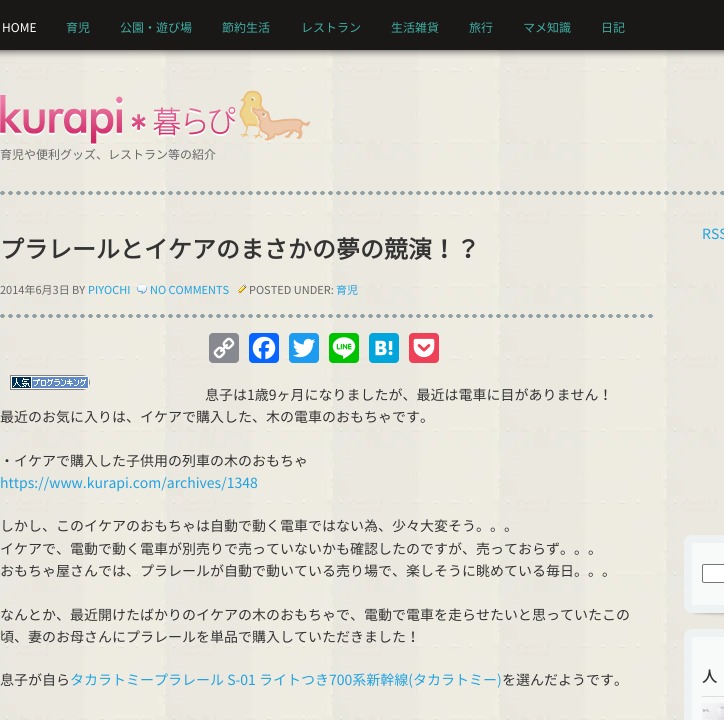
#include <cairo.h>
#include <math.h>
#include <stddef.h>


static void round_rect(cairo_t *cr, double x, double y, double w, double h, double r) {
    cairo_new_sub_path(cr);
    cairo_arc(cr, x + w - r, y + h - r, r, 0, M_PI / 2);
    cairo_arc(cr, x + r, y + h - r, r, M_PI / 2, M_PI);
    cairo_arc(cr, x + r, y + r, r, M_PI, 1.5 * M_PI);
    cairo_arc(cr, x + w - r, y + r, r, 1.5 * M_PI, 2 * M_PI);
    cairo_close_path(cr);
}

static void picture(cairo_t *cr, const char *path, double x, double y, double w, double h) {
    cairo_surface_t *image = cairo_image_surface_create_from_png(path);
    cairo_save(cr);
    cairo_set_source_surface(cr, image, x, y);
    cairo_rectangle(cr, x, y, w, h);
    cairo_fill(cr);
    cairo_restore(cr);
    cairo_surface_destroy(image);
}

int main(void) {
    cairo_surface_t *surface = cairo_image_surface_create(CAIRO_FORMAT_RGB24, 724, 720);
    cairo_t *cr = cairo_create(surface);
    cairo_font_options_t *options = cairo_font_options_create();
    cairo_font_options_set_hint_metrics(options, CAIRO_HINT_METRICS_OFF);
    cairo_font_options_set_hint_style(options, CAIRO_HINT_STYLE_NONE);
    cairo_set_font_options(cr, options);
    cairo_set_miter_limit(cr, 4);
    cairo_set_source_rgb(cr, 1, 1, 1);
    cairo_paint(cr);
    picture(cr, "img1.png", 0, 50, 724, 670);
    picture(cr, "img2.png", 0, 0, 724, 195);
    cairo_select_font_face(cr, "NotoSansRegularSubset", CAIRO_FONT_SLANT_NORMAL, CAIRO_FONT_WEIGHT_NORMAL);
    cairo_set_font_size(cr, 12);
    cairo_set_source_rgb(cr, 1, 1, 1);
    cairo_move_to(cr, 2, 32);
    cairo_show_text(cr, "HOME");
    cairo_set_source_rgb(cr, 0.247, 0.682, 0.647);
    cairo_move_to(cr, 66, 32);
    cairo_show_text(cr, "育児");
    cairo_move_to(cr, 120, 32);
    cairo_show_text(cr, "公園・遊び場");
    cairo_move_to(cr, 222, 32);
    cairo_show_text(cr, "節約生活");
    cairo_move_to(cr, 301, 32);
    cairo_show_text(cr, "レストラン");
    cairo_move_to(cr, 391, 32);
    cairo_show_text(cr, "生活雑貨");
    cairo_move_to(cr, 469, 32);
    cairo_show_text(cr, "旅行");
    cairo_move_to(cr, 523, 32);
    cairo_show_text(cr, "マメ知識");
    cairo_move_to(cr, 601, 32);
    cairo_show_text(cr, "日記");
    picture(cr, "img3.png", 0, 90, 310, 55);
    cairo_set_source_rgb(cr, 0.4, 0.4, 0.4);
    cairo_move_to(cr, 0, 159);
    cairo_show_text(cr, "育児や便利グッズ、レストラン等の紹介");
    cairo_select_font_face(cr, "NotoSansRegularSubset", CAIRO_FONT_SLANT_NORMAL, CAIRO_FONT_WEIGHT_BOLD);
    cairo_set_font_size(cr, 24);
    cairo_set_source_rgb(cr, 0.2, 0.2, 0.2);
    cairo_move_to(cr, 0, 258);
    cairo_show_text(cr, "プラレールとイケアのまさかの夢の競演！？");
    picture(cr, "img4.png", 0, 314, 653, 4);
    cairo_select_font_face(cr, "NotoSansRegularSubset", CAIRO_FONT_SLANT_NORMAL, CAIRO_FONT_WEIGHT_NORMAL);
    cairo_set_font_size(cr, 11);
    cairo_set_source_rgb(cr, 0.4, 0.4, 0.4);
    cairo_move_to(cr, 0, 294);
    cairo_show_text(cr, "2014年6月3日 BY");
    cairo_set_source_rgb(cr, 0.122, 0.635, 0.882);
    cairo_move_to(cr, 88, 294);
    cairo_show_text(cr, "PIYOCHI");
    picture(cr, "img5.png", 137, 284, 10, 10);
    cairo_move_to(cr, 150, 294);
    cairo_show_text(cr, "NO COMMENTS");
    picture(cr, "img6.png", 237, 284, 10, 10);
    cairo_set_source_rgb(cr, 0.4, 0.4, 0.4);
    cairo_move_to(cr, 249, 294);
    cairo_show_text(cr, "POSTED UNDER:");
    cairo_set_source_rgb(cr, 0.122, 0.635, 0.882);
    cairo_move_to(cr, 336, 294);
    cairo_show_text(cr, "育児");
    cairo_set_source_rgb(cr, 0.533, 0.537, 0.565);
    round_rect(cr, 209, 333, 30, 30, 4);
    cairo_fill(cr);
    picture(cr, "img7.png", 213, 337, 22, 22);
    cairo_set_source_rgb(cr, 0.031, 0.4, 1);
    round_rect(cr, 249, 333, 30, 30, 4);
    cairo_fill(cr);
    picture(cr, "img8.png", 252, 336, 24, 24);
    cairo_set_source_rgb(cr, 0.114, 0.608, 0.941);
    round_rect(cr, 289, 333, 30, 30, 4);
    cairo_fill(cr);
    picture(cr, "img9.png", 293, 338, 23, 20);
    cairo_set_source_rgb(cr, 0, 0.765, 0);
    round_rect(cr, 329, 333, 30, 30, 4);
    cairo_fill(cr);
    picture(cr, "img10.png", 332, 337, 24, 22);
    cairo_set_source_rgb(cr, 0, 0.651, 0.859);
    round_rect(cr, 369, 333, 30, 30, 4);
    cairo_fill(cr);
    picture(cr, "img11.png", 375, 340, 18, 16);
    cairo_set_source_rgb(cr, 0.933, 0.251, 0.337);
    round_rect(cr, 409, 333, 30, 30, 4);
    cairo_fill(cr);
    picture(cr, "img12.png", 413, 338, 22, 20);
    picture(cr, "img13.png", 10, 375, 80, 15);
    cairo_set_font_size(cr, 14);
    cairo_set_source_rgb(cr, 0.2, 0.2, 0.2);
    cairo_move_to(cr, 205, 400);
    cairo_show_text(cr, "息子は1歳9ヶ月になりましたが、最近は電車に目がありません！");
    cairo_move_to(cr, 0, 422);
    cairo_show_text(cr, "最近のお気に入りは、イケアで購入した、木の電車のおもちゃです。");
    cairo_move_to(cr, 0, 466);
    cairo_show_text(cr, "・イケアで購入した子供用の列車の木のおもちゃ");
    cairo_set_source_rgb(cr, 0.122, 0.635, 0.882);
    cairo_move_to(cr, 0, 488);
    cairo_show_text(cr, "https://www.kurapi.com/archives/1348");
    cairo_set_source_rgb(cr, 0.2, 0.2, 0.2);
    cairo_move_to(cr, 0, 531);
    cairo_show_text(cr, "しかし、このイケアのおもちゃは自動で動く電車ではない為、少々大変そう。。。");
    cairo_move_to(cr, 0, 554);
    cairo_show_text(cr, "イケアで、電動で動く電車が別売りで売っていないかも確認したのですが、売っておらず。。。");
    cairo_move_to(cr, 0, 576);
    cairo_show_text(cr, "おもちゃ屋さんでは、プラレールが自動で動いている売り場で、楽しそうに眺めている毎日。。。");
    cairo_move_to(cr, 0, 620);
    cairo_show_text(cr, "なんとか、最近開けたばかりのイケアの木のおもちゃで、電動で電車を走らせたいと思っていたこの");
    cairo_move_to(cr, 0, 642);
    cairo_show_text(cr, "頃、妻のお母さんにプラレールを単品で購入していただきました！");
    cairo_move_to(cr, 0, 685);
    cairo_show_text(cr, "息子が自ら");
    cairo_set_source_rgb(cr, 0.122, 0.635, 0.882);
    cairo_move_to(cr, 70, 685);
    cairo_show_text(cr, "タカラトミープラレール S-01 ライトつき700系新幹線(タカラトミー)");
    cairo_set_source_rgb(cr, 0.2, 0.2, 0.2);
    cairo_move_to(cr, 502, 685);
    cairo_show_text(cr, "を選んだようです。");
    cairo_set_source_rgb(cr, 0.122, 0.635, 0.882);
    cairo_move_to(cr, 702, 239);
    cairo_show_text(cr, "RSS");
    picture(cr, "img14.png", 693, 613, 31, 4);
    cairo_set_source_rgb(cr, 0.969, 0.976, 0.976);
    round_rect(cr, 688, 539, 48, 70, 4);
    cairo_fill_preserve(cr);
    cairo_set_source_rgb(cr, 0.933, 0.949, 0.949);
    cairo_set_line_width(cr, 8);
    cairo_stroke(cr);
    cairo_set_source_rgb(cr, 1, 1, 1);
    round_rect(cr, 702.5, 564.5, 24, 18, 1.5);
    cairo_fill_preserve(cr);
    cairo_set_source_rgb(cr, 0.463, 0.463, 0.463);
    cairo_set_line_width(cr, 1);
    cairo_stroke(cr);
    cairo_set_source_rgb(cr, 0.969, 0.976, 0.976);
    round_rect(cr, 688, 633, 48, 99, 4);
    cairo_fill_preserve(cr);
    cairo_set_source_rgb(cr, 0.933, 0.949, 0.949);
    cairo_set_line_width(cr, 8);
    cairo_stroke(cr);
    cairo_set_source_rgb(cr, 0.867, 0.867, 0.867);
    cairo_rectangle(cr, 702, 696, 22, 1);
    cairo_fill(cr);
    cairo_select_font_face(cr, "NotoSansRegularSubset", CAIRO_FONT_SLANT_NORMAL, CAIRO_FONT_WEIGHT_BOLD);
    cairo_set_font_size(cr, 15);
    cairo_set_source_rgb(cr, 0.2, 0.2, 0.2);
    cairo_move_to(cr, 702, 682);
    cairo_show_text(cr, "人");
    picture(cr, "img15.png", 702, 703, 22, 17);
    cairo_surface_write_to_png(surface, "page.png");
    cairo_font_options_destroy(options);
    cairo_destroy(cr);
    cairo_surface_destroy(surface);
    return 0;
}
